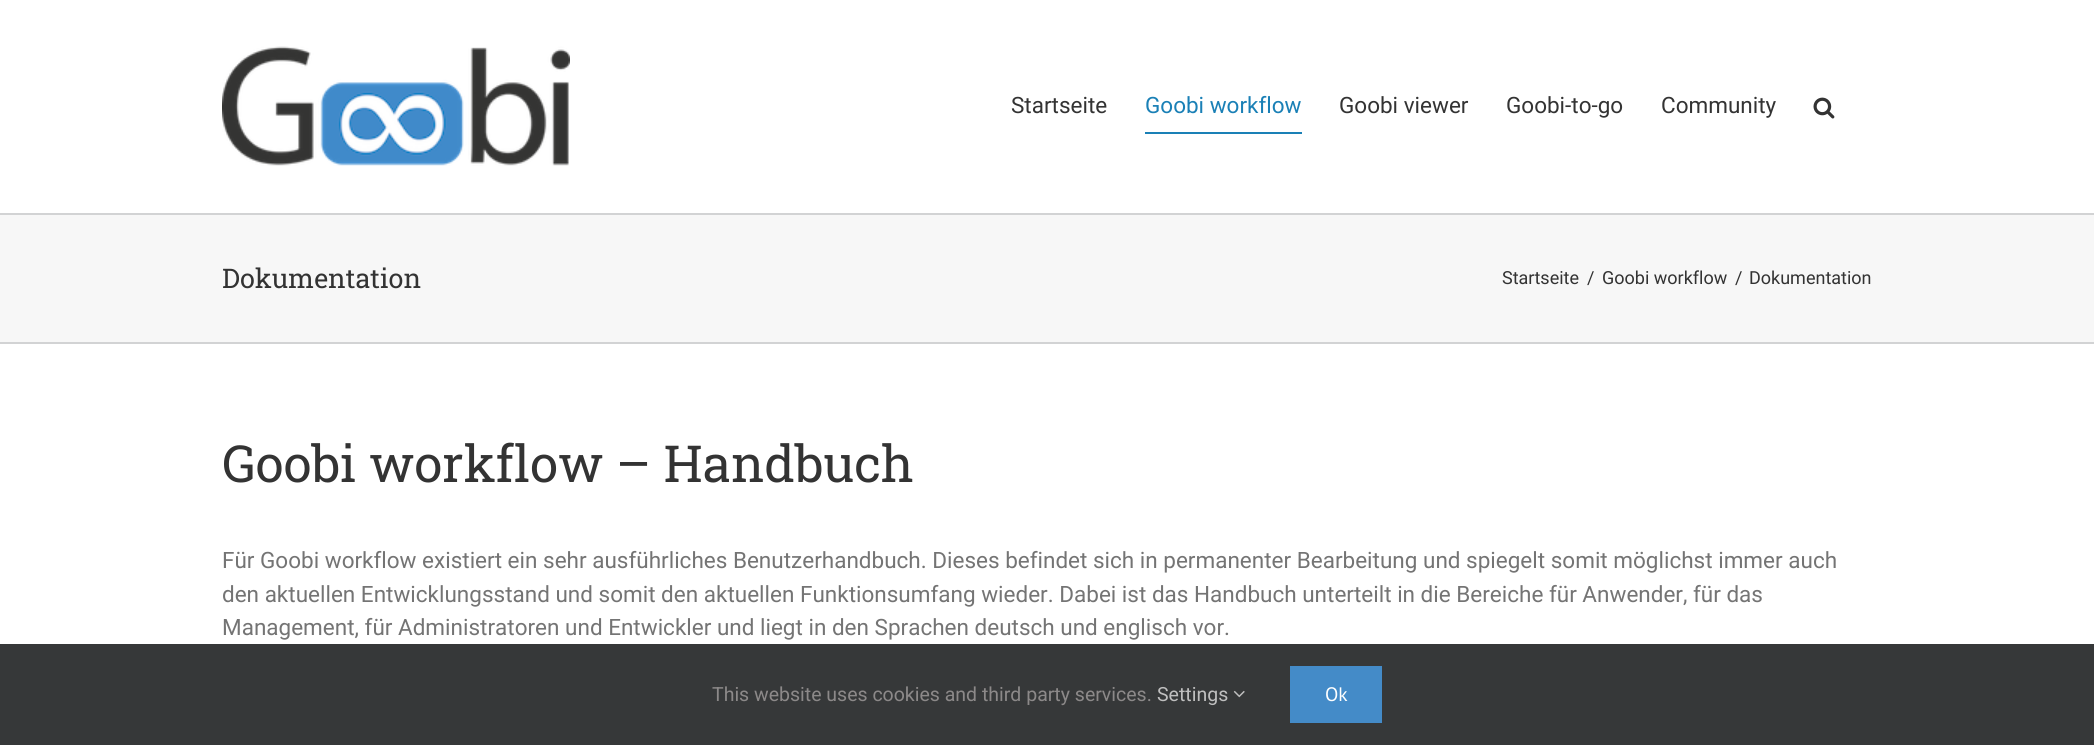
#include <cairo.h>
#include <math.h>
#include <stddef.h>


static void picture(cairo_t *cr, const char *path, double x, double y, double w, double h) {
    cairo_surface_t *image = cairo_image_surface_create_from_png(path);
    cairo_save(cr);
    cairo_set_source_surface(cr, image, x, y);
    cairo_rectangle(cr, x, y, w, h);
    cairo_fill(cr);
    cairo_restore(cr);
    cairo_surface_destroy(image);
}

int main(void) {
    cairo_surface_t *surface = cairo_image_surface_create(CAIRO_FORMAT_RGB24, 2094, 745);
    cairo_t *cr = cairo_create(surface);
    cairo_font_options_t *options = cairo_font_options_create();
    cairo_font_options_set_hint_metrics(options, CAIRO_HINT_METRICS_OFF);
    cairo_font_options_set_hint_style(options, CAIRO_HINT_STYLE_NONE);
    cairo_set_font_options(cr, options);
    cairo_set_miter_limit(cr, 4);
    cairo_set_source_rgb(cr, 1, 1, 1);
    cairo_paint(cr);
    picture(cr, "img1.png", 222, 46, 348, 120);
    cairo_select_font_face(cr, "Roboto", CAIRO_FONT_SLANT_NORMAL, CAIRO_FONT_WEIGHT_NORMAL);
    cairo_set_font_size(cr, 22.5);
    cairo_set_source_rgb(cr, 0.2, 0.2, 0.2);
    cairo_move_to(cr, 1011, 113);
    cairo_show_text(cr, "Startseite");
    cairo_set_source_rgb(cr, 0.102, 0.502, 0.714);
    cairo_move_to(cr, 1145, 113);
    cairo_show_text(cr, "Goobi workflow");
    cairo_rectangle(cr, 1145, 132, 157, 2);
    cairo_fill(cr);
    cairo_set_source_rgb(cr, 0.2, 0.2, 0.2);
    cairo_move_to(cr, 1339, 113);
    cairo_show_text(cr, "Goobi viewer");
    cairo_move_to(cr, 1506, 113);
    cairo_show_text(cr, "Goobi-to-go");
    cairo_move_to(cr, 1661, 113);
    cairo_show_text(cr, "Community");
    picture(cr, "img2.png", 1813, 97, 22, 22);
    cairo_set_source_rgb(cr, 0.965, 0.965, 0.965);
    cairo_rectangle(cr, 0, 215, 2094, 127);
    cairo_fill(cr);
    cairo_set_source_rgb(cr, 0.824, 0.827, 0.831);
    cairo_rectangle(cr, 0, 213, 2094, 2);
    cairo_fill(cr);
    cairo_rectangle(cr, 0, 342, 2094, 2);
    cairo_fill(cr);
    cairo_select_font_face(cr, "Roboto Slab", CAIRO_FONT_SLANT_NORMAL, CAIRO_FONT_WEIGHT_NORMAL);
    cairo_set_font_size(cr, 27);
    cairo_set_source_rgb(cr, 0.2, 0.2, 0.2);
    cairo_move_to(cr, 222, 288);
    cairo_show_text(cr, "Dokumentation");
    cairo_select_font_face(cr, "Roboto", CAIRO_FONT_SLANT_NORMAL, CAIRO_FONT_WEIGHT_NORMAL);
    cairo_set_font_size(cr, 18);
    cairo_move_to(cr, 1502, 284);
    cairo_show_text(cr, "Startseite");
    cairo_move_to(cr, 1587, 284);
    cairo_show_text(cr, "/");
    cairo_move_to(cr, 1602, 284);
    cairo_show_text(cr, "Goobi workflow");
    cairo_move_to(cr, 1735, 284);
    cairo_show_text(cr, "/");
    cairo_move_to(cr, 1749, 284);
    cairo_show_text(cr, "Dokumentation");
    cairo_select_font_face(cr, "Roboto Slab", CAIRO_FONT_SLANT_NORMAL, CAIRO_FONT_WEIGHT_NORMAL);
    cairo_set_font_size(cr, 51);
    cairo_move_to(cr, 222, 482);
    cairo_show_text(cr, "Goobi workflow – Handbuch");
    cairo_select_font_face(cr, "Roboto", CAIRO_FONT_SLANT_NORMAL, CAIRO_FONT_WEIGHT_NORMAL);
    cairo_set_font_size(cr, 22.5);
    cairo_set_source_rgb(cr, 0.455, 0.455, 0.455);
    cairo_move_to(cr, 222, 568);
    cairo_show_text(cr, "Für Goobi workflow existiert ein sehr ausführliches Benutzerhandbuch. Dieses befindet sich in permanenter Bearbeitung und spiegelt somit möglichst immer auch");
    cairo_move_to(cr, 222, 602);
    cairo_show_text(cr, "den aktuellen Entwicklungsstand und somit den aktuellen Funktionsumfang wieder. Dabei ist das Handbuch unterteilt in die Bereiche für Anwender, für das");
    cairo_move_to(cr, 222, 635);
    cairo_show_text(cr, "Management, für Administratoren und Entwickler und liegt in den Sprachen deutsch und englisch vor.");
    cairo_set_source_rgb(cr, 0.212, 0.22, 0.224);
    cairo_rectangle(cr, 0, 644, 2094, 101);
    cairo_fill(cr);
    cairo_set_font_size(cr, 19.5);
    cairo_set_source_rgb(cr, 0.549, 0.537, 0.537);
    cairo_move_to(cr, 712, 701);
    cairo_show_text(cr, "This website uses cookies and third party services.");
    cairo_set_source_rgb(cr, 0.749, 0.749, 0.749);
    cairo_move_to(cr, 1157, 701);
    cairo_show_text(cr, "Settings");
    picture(cr, "img3.png", 1233, 690, 12, 8);
    cairo_set_source_rgb(cr, 0.267, 0.545, 0.784);
    cairo_rectangle(cr, 1290, 666, 92, 57);
    cairo_fill(cr);
    cairo_select_font_face(cr, "PT Sans", CAIRO_FONT_SLANT_NORMAL, CAIRO_FONT_WEIGHT_NORMAL);
    cairo_set_source_rgb(cr, 1, 1, 1);
    cairo_move_to(cr, 1325, 701);
    cairo_show_text(cr, "Ok");
    cairo_surface_write_to_png(surface, "page.png");
    cairo_font_options_destroy(options);
    cairo_destroy(cr);
    cairo_surface_destroy(surface);
    return 0;
}
